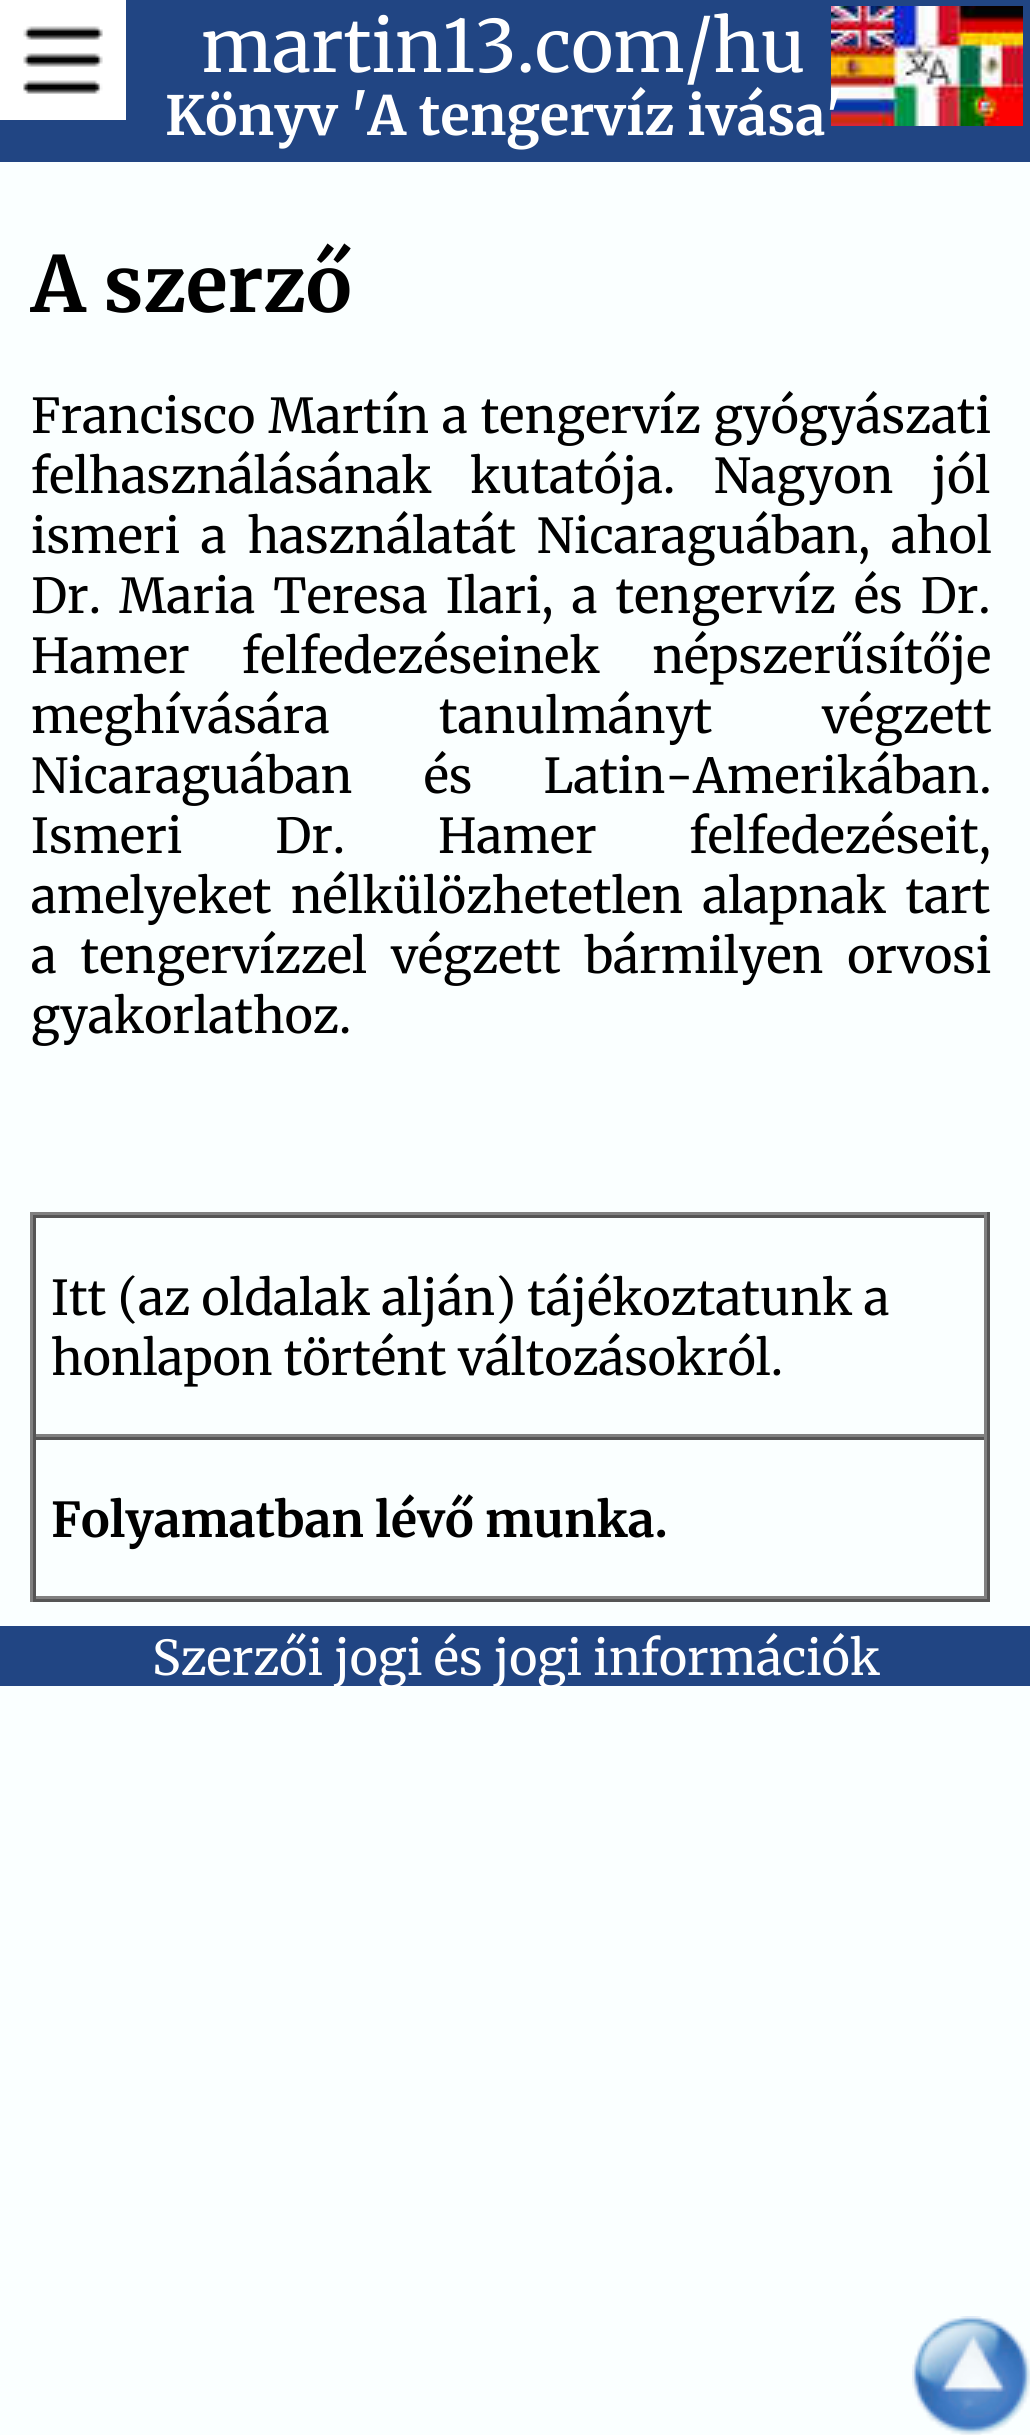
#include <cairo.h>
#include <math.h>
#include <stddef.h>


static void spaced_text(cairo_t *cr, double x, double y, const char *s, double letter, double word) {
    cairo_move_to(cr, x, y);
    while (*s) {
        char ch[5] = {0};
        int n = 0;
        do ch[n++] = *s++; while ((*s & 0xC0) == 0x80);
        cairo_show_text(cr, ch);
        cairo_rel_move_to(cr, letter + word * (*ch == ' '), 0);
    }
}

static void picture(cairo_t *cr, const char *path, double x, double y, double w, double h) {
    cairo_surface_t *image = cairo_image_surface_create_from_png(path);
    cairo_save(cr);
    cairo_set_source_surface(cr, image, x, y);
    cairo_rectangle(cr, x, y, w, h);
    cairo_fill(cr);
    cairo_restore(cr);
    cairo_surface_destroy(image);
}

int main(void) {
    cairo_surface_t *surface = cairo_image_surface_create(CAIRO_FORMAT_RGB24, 1030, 2435);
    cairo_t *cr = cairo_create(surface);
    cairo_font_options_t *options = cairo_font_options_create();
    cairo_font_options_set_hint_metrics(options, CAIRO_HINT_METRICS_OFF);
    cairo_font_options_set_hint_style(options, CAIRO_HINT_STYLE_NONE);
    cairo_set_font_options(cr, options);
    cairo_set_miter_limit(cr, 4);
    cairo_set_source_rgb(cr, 0.98, 1, 1);
    cairo_paint(cr);
    cairo_set_source_rgb(cr, 0.129, 0.271, 0.514);
    cairo_rectangle(cr, 0, 0, 1030, 162);
    cairo_fill(cr);
    picture(cr, "img1.png", 0, 0, 126, 120);
    cairo_select_font_face(cr, "Merriweather", CAIRO_FONT_SLANT_NORMAL, CAIRO_FONT_WEIGHT_NORMAL);
    cairo_set_font_size(cr, 72);
    cairo_set_source_rgb(cr, 1, 1, 1);
    cairo_move_to(cr, 201, 72);
    cairo_show_text(cr, "martin13.com/hu");
    picture(cr, "img2.png", 831, 6, 192, 120);
    cairo_select_font_face(cr, "Merriweather", CAIRO_FONT_SLANT_NORMAL, CAIRO_FONT_WEIGHT_BOLD);
    cairo_set_font_size(cr, 54);
    cairo_move_to(cr, 165, 135);
    cairo_show_text(cr, "Könyv 'A tengervíz ivása'");
    cairo_set_font_size(cr, 77);
    cairo_set_source_rgb(cr, 0, 0, 0);
    cairo_move_to(cr, 31, 312);
    cairo_show_text(cr, "A szerző");
    cairo_select_font_face(cr, "Merriweather", CAIRO_FONT_SLANT_NORMAL, CAIRO_FONT_WEIGHT_NORMAL);
    cairo_set_font_size(cr, 48);
    spaced_text(cr, 31, 433, "Francisco Martín a tengervíz gyógyászati", 0, 1.5);
    spaced_text(cr, 31, 493, "felhasználásának kutatója. Nagyon jól", 0, 27);
    spaced_text(cr, 31, 553, "ismeri a használatát Nicaraguában, ahol", 0, 9.5);
    spaced_text(cr, 31, 613, "Dr. Maria Teresa Ilari, a tengervíz és Dr.", 0, 6.75);
    spaced_text(cr, 31, 673, "Hamer felfedezéseinek népszerűsítője", 0, 41);
    spaced_text(cr, 31, 733, "meghívására tanulmányt végzett", 0, 98);
    spaced_text(cr, 31, 793, "Nicaraguában és Latin-Amerikában.", 0, 60);
    spaced_text(cr, 31, 853, "Ismeri Dr. Hamer felfedezéseit,", 0, 81.5);
    spaced_text(cr, 31, 913, "amelyeket nélkülözhetetlen alapnak tart", 0, 8);
    spaced_text(cr, 31, 973, "a tengervízzel végzett bármilyen orvosi", 0, 12.5);
    cairo_move_to(cr, 31, 1033);
    cairo_show_text(cr, "gyakorlathoz.");
    cairo_set_source_rgb(cr, 0.502, 0.502, 0.502);
    cairo_rectangle(cr, 30, 1212, 960, 3);
    cairo_fill(cr);
    cairo_set_source_rgb(cr, 0.333, 0.333, 0.333);
    cairo_rectangle(cr, 987, 1212, 3, 390);
    cairo_fill(cr);
    cairo_rectangle(cr, 30, 1599, 960, 3);
    cairo_fill(cr);
    cairo_set_source_rgb(cr, 0.502, 0.502, 0.502);
    cairo_rectangle(cr, 30, 1212, 3, 390);
    cairo_fill(cr);
    cairo_set_source_rgb(cr, 0.333, 0.333, 0.333);
    cairo_rectangle(cr, 33, 1215, 954, 3);
    cairo_fill(cr);
    cairo_set_source_rgb(cr, 0.502, 0.502, 0.502);
    cairo_rectangle(cr, 984, 1215, 3, 222);
    cairo_fill(cr);
    cairo_rectangle(cr, 33, 1434, 954, 3);
    cairo_fill(cr);
    cairo_set_source_rgb(cr, 0.333, 0.333, 0.333);
    cairo_rectangle(cr, 33, 1215, 3, 222);
    cairo_fill(cr);
    cairo_set_source_rgb(cr, 0, 0, 0);
    cairo_move_to(cr, 51, 1315);
    cairo_show_text(cr, "Itt (az oldalak alján) tájékoztatunk a");
    cairo_move_to(cr, 51, 1375);
    cairo_show_text(cr, "honlapon történt változásokról.");
    cairo_set_source_rgb(cr, 0.333, 0.333, 0.333);
    cairo_rectangle(cr, 33, 1437, 954, 3);
    cairo_fill(cr);
    cairo_set_source_rgb(cr, 0.502, 0.502, 0.502);
    cairo_rectangle(cr, 984, 1437, 3, 162);
    cairo_fill(cr);
    cairo_rectangle(cr, 33, 1596, 954, 3);
    cairo_fill(cr);
    cairo_set_source_rgb(cr, 0.333, 0.333, 0.333);
    cairo_rectangle(cr, 33, 1437, 3, 162);
    cairo_fill(cr);
    cairo_select_font_face(cr, "Merriweather", CAIRO_FONT_SLANT_NORMAL, CAIRO_FONT_WEIGHT_BOLD);
    cairo_set_source_rgb(cr, 0, 0, 0);
    cairo_move_to(cr, 51, 1537);
    cairo_show_text(cr, "Folyamatban lévő munka.");
    cairo_set_source_rgb(cr, 0.129, 0.271, 0.514);
    cairo_rectangle(cr, 0, 1626, 1030, 60);
    cairo_fill(cr);
    cairo_select_font_face(cr, "Merriweather", CAIRO_FONT_SLANT_NORMAL, CAIRO_FONT_WEIGHT_NORMAL);
    cairo_set_source_rgb(cr, 1, 1, 1);
    cairo_move_to(cr, 152, 1675);
    cairo_show_text(cr, "Szerzői jogi és jogi információk");
    picture(cr, "img3.png", 912, 2316, 118, 119);
    cairo_surface_write_to_png(surface, "page.png");
    cairo_font_options_destroy(options);
    cairo_destroy(cr);
    cairo_surface_destroy(surface);
    return 0;
}
